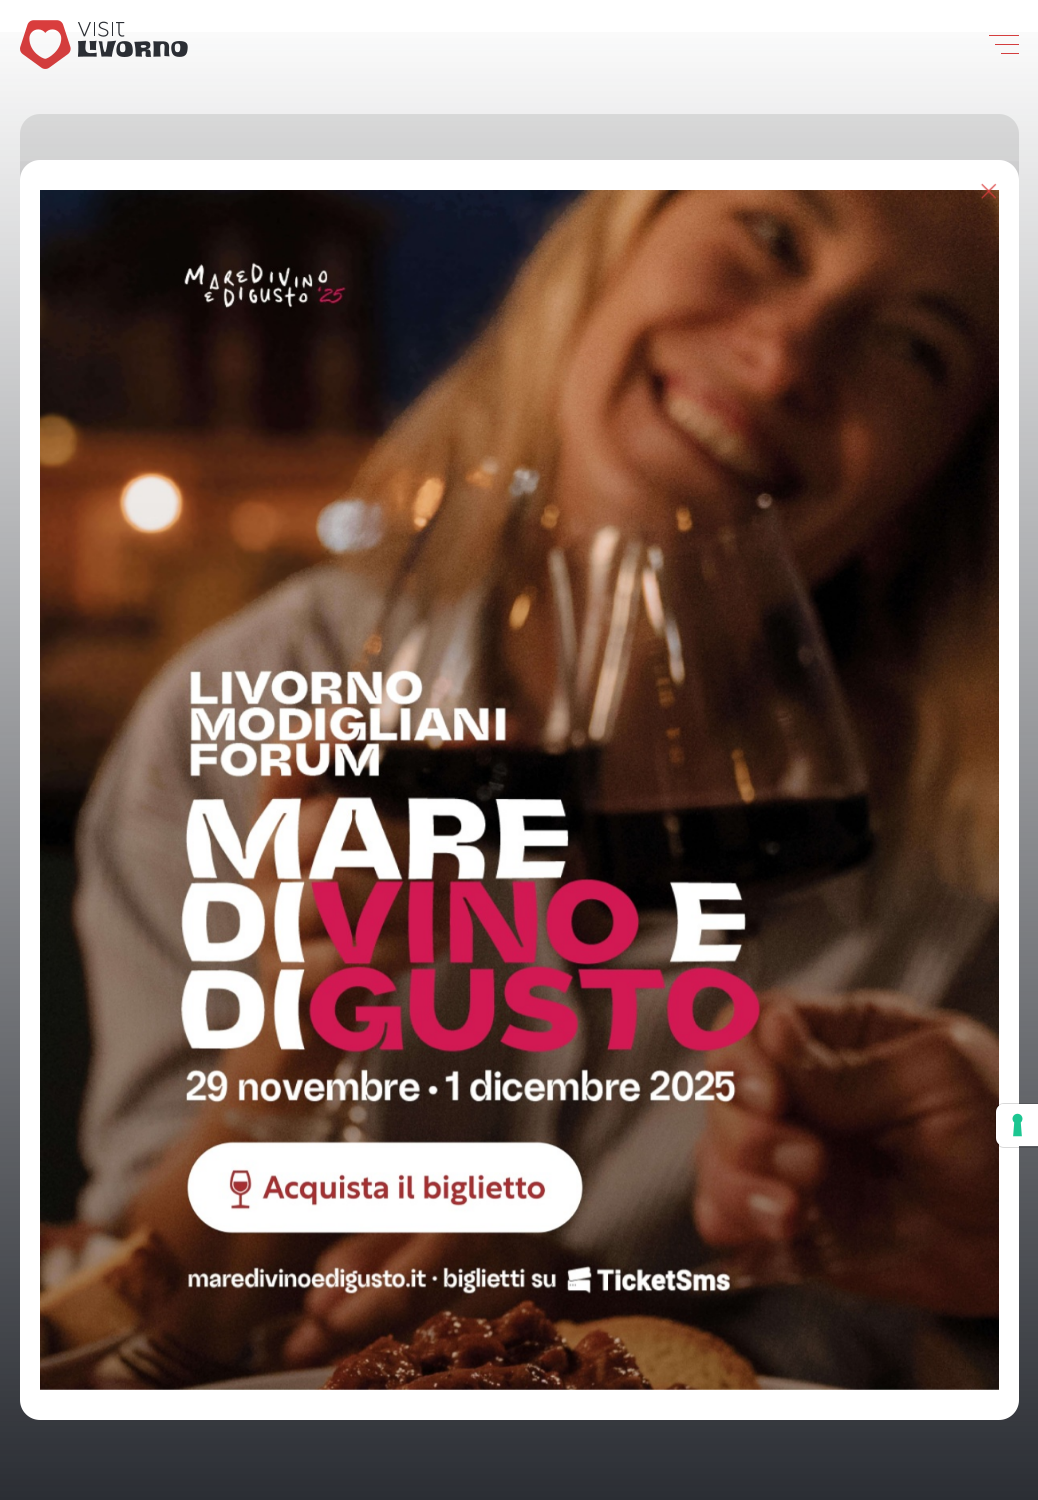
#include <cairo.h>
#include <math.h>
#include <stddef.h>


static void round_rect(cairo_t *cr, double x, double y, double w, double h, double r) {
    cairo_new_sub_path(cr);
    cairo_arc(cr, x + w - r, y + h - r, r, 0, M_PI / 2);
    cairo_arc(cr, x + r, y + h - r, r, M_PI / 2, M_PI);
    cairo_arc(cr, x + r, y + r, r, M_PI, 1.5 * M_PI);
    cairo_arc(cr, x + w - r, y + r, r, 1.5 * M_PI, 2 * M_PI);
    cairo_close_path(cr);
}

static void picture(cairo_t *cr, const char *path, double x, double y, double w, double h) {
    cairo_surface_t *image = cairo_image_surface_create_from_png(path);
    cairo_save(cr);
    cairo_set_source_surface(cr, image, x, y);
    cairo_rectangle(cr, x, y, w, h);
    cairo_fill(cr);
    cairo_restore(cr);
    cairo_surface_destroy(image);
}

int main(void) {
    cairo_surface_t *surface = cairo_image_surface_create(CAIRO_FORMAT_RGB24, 1038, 1500);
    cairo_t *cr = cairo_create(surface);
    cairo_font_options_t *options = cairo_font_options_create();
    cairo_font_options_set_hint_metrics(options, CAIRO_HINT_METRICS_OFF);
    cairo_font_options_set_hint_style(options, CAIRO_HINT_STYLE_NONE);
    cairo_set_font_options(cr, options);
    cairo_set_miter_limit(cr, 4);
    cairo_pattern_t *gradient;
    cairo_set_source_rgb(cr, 1, 1, 1);
    cairo_paint(cr);
    picture(cr, "img1.png", 20, 20, 168, 49);
    cairo_set_source_rgb(cr, 0.851, 0.239, 0.239);
    cairo_rectangle(cr, 989, 35, 30, 1);
    cairo_fill(cr);
    cairo_rectangle(cr, 995, 44, 24, 1);
    cairo_fill(cr);
    cairo_rectangle(cr, 1001, 53, 18, 1);
    cairo_fill(cr);
    cairo_set_source_rgb(cr, 0.902, 0.902, 0.902);
    round_rect(cr, 20, 114, 999, 1080, 20);
    cairo_fill(cr);
    gradient = cairo_pattern_create_linear(519, 1194, 519, 114);
    cairo_pattern_add_color_stop_rgba(gradient, 0, 0.169, 0.18, 0.204, 0.5);
    cairo_pattern_add_color_stop_rgba(gradient, 1, 0.169, 0.18, 0.204, 0);
    cairo_set_source(cr, gradient);
    cairo_pattern_destroy(gradient);
    cairo_rectangle(cr, 20, 161, 999, 19);
    cairo_fill(cr);
    gradient = cairo_pattern_create_linear(519, 1500, 519, 0);
    cairo_pattern_add_color_stop_rgba(gradient, 0, 0.169, 0.18, 0.204, 1);
    cairo_pattern_add_color_stop_rgba(gradient, 1, 0.169, 0.18, 0.204, 0);
    cairo_set_source(cr, gradient);
    cairo_pattern_destroy(gradient);
    cairo_rectangle(cr, 0, 32, 1038, 1468);
    cairo_fill(cr);
    cairo_set_source_rgb(cr, 1, 1, 1);
    round_rect(cr, 20, 160, 999, 1260, 20);
    cairo_fill(cr);
    picture(cr, "img3.png", 40, 190, 959, 1200);
    picture(cr, "img2.png", 980, 183, 17, 17);
    cairo_new_path(cr);
    cairo_move_to(cr, 1004, 1103.5);
    cairo_line_to(cr, 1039.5, 1103.5);
    cairo_line_to(cr, 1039.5, 1147.5);
    cairo_line_to(cr, 1004, 1147.5);
    cairo_curve_to(cr, 999.5, 1147.5, 995.5, 1143.5, 995.5, 1139);
    cairo_line_to(cr, 995.5, 1112);
    cairo_curve_to(cr, 995.5, 1107.5, 999.5, 1103.5, 1004, 1103.5);
    cairo_close_path(cr);
    cairo_set_source_rgba(cr, 0, 0, 0, 0.15);
    cairo_set_line_width(cr, 1);
    cairo_stroke(cr);
    cairo_set_source_rgb(cr, 1, 1, 1);
    cairo_new_path(cr);
    cairo_move_to(cr, 1004, 1104);
    cairo_line_to(cr, 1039, 1104);
    cairo_line_to(cr, 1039, 1146);
    cairo_line_to(cr, 1004, 1146);
    cairo_curve_to(cr, 999.5, 1146, 996, 1142.5, 996, 1138);
    cairo_line_to(cr, 996, 1112);
    cairo_curve_to(cr, 996, 1107.5, 999.5, 1104, 1004, 1104);
    cairo_close_path(cr);
    cairo_fill(cr);
    picture(cr, "img4.png", 1012, 1113, 11, 24);
    cairo_surface_write_to_png(surface, "page.png");
    cairo_font_options_destroy(options);
    cairo_destroy(cr);
    cairo_surface_destroy(surface);
    return 0;
}
